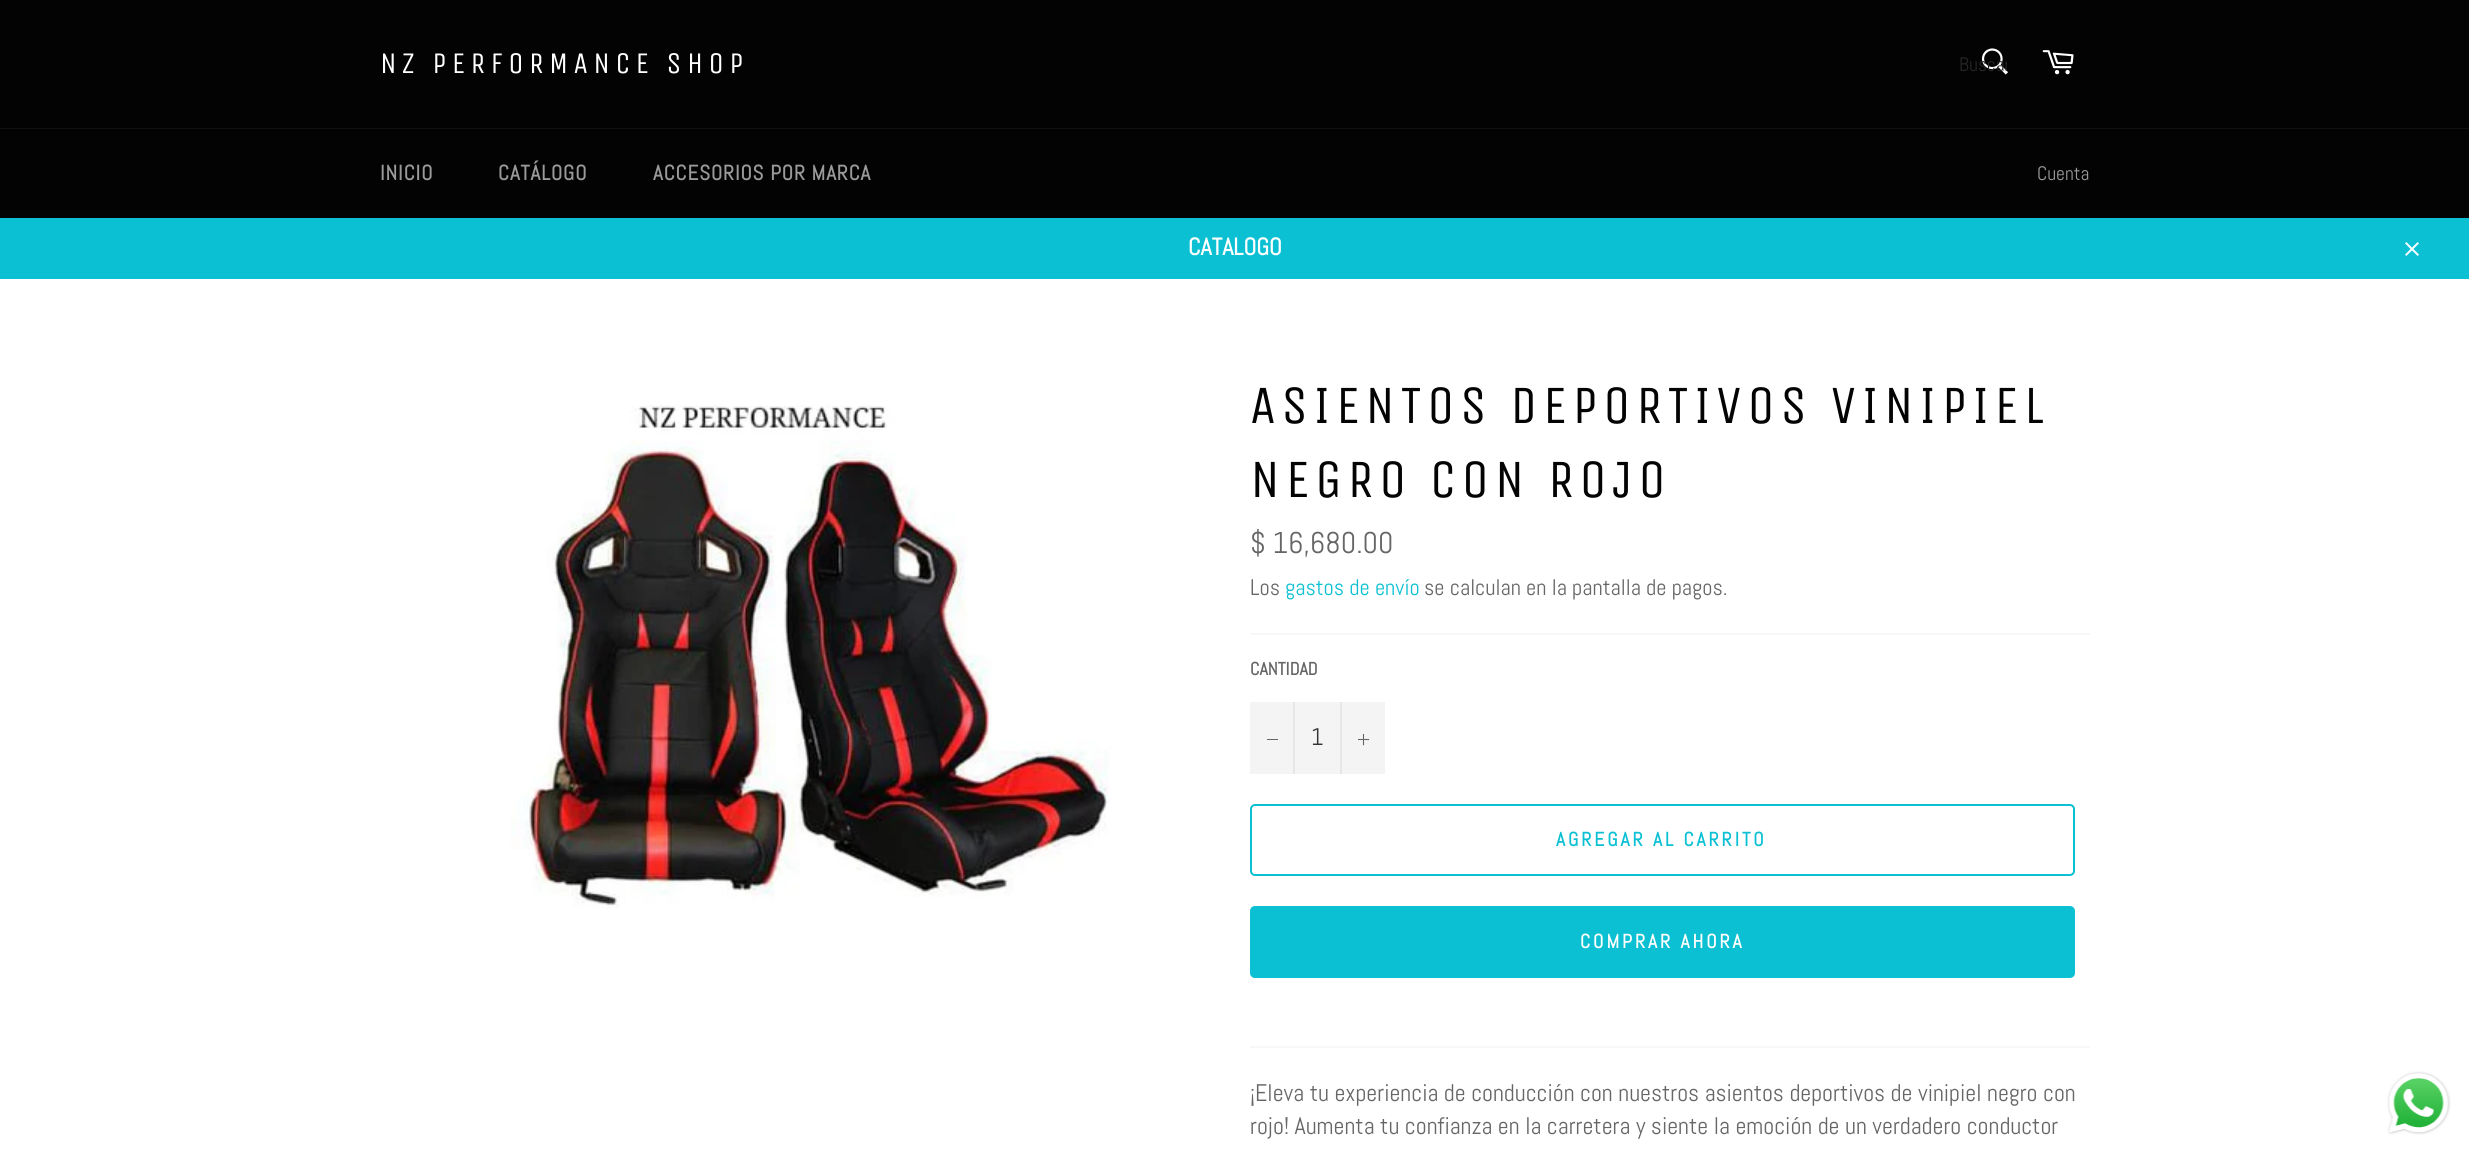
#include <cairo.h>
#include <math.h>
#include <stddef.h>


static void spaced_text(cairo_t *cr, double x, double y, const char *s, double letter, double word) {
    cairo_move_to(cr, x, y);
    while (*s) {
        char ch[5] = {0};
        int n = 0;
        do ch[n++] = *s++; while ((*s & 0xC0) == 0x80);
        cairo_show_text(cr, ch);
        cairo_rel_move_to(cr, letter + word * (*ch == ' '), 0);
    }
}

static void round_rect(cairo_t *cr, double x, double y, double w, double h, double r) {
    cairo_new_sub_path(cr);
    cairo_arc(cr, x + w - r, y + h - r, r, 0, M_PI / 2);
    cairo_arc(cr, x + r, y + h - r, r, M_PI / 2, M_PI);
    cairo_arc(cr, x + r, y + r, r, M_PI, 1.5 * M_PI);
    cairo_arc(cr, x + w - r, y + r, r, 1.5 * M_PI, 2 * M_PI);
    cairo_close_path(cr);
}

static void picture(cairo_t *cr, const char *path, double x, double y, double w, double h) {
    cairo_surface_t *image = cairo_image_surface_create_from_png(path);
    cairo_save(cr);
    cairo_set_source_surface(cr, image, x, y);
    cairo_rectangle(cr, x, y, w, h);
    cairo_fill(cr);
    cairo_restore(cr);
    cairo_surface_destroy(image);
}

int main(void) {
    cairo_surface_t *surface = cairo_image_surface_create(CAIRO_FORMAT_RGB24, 2469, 1153);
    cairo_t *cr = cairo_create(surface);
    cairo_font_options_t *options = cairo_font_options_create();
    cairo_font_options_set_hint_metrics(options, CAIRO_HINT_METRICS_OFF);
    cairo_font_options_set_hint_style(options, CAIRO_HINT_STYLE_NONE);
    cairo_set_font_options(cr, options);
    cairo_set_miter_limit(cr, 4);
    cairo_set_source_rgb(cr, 0.012, 0.012, 0.012);
    cairo_paint(cr);
    cairo_select_font_face(cr, "Unica One", CAIRO_FONT_SLANT_NORMAL, CAIRO_FONT_WEIGHT_NORMAL);
    cairo_set_font_size(cr, 30);
    cairo_set_source_rgb(cr, 1, 1, 1);
    spaced_text(cr, 380, 73, "NZ PERFORMANCE SHOP", 5.4, 0);
    picture(cr, "img1.png", 1981, 48, 27, 27);
    cairo_save(cr);
    cairo_rectangle(cr, 1959, 51, 48, 26);
    cairo_clip(cr);
    cairo_select_font_face(cr, "Abel", CAIRO_FONT_SLANT_NORMAL, CAIRO_FONT_WEIGHT_NORMAL);
    cairo_set_font_size(cr, 19.5);
    cairo_set_source_rgb(cr, 0.149, 0.149, 0.149);
    cairo_move_to(cr, 1959, 71);
    cairo_show_text(cr, "Buscar");
    cairo_restore(cr);
    picture(cr, "img2.png", 2042, 50, 32, 25);
    cairo_set_source_rgb(cr, 0.063, 0.063, 0.063);
    cairo_rectangle(cr, 0, 128, 2469, 1);
    cairo_fill(cr);
    cairo_select_font_face(cr, "Abel", CAIRO_FONT_SLANT_NORMAL, CAIRO_FONT_WEIGHT_BOLD);
    cairo_set_font_size(cr, 21);
    cairo_set_source_rgb(cr, 0.604, 0.604, 0.604);
    spaced_text(cr, 380, 180, "INICIO", 0.9, 0);
    spaced_text(cr, 498, 180, "CATÁLOGO", 0.9, 0);
    spaced_text(cr, 653, 180, "ACCESORIOS POR MARCA", 0.9, 0);
    cairo_select_font_face(cr, "Abel", CAIRO_FONT_SLANT_NORMAL, CAIRO_FONT_WEIGHT_NORMAL);
    cairo_set_font_size(cr, 19.5);
    cairo_move_to(cr, 2037, 180);
    cairo_show_text(cr, "Cuenta");
    cairo_set_source_rgb(cr, 0.043, 0.753, 0.827);
    cairo_rectangle(cr, 0, 218, 2469, 61);
    cairo_fill(cr);
    cairo_select_font_face(cr, "Abel", CAIRO_FONT_SLANT_NORMAL, CAIRO_FONT_WEIGHT_BOLD);
    cairo_set_font_size(cr, 24);
    cairo_set_source_rgb(cr, 1, 1, 1);
    cairo_move_to(cr, 1188, 255);
    cairo_show_text(cr, "CATALOGO");
    picture(cr, "img3.png", 2405, 242, 14, 14);
    cairo_rectangle(cr, 0, 279, 2469, 874);
    cairo_fill(cr);
    picture(cr, "img4.png", 511, 405, 600, 504);
    cairo_select_font_face(cr, "Unica One", CAIRO_FONT_SLANT_NORMAL, CAIRO_FONT_WEIGHT_NORMAL);
    cairo_set_font_size(cr, 54);
    cairo_set_source_rgb(cr, 0.012, 0.012, 0.012);
    spaced_text(cr, 1250, 423, "ASIENTOS DEPORTIVOS VINIPIEL", 5.4, 0);
    spaced_text(cr, 1250, 497, "NEGRO CON ROJO", 5.4, 0);
    cairo_select_font_face(cr, "Abel", CAIRO_FONT_SLANT_NORMAL, CAIRO_FONT_WEIGHT_NORMAL);
    cairo_set_font_size(cr, 30);
    cairo_set_source_rgb(cr, 0.4, 0.4, 0.4);
    cairo_move_to(cr, 1250, 553);
    cairo_show_text(cr, "$ 16,680.00");
    cairo_set_font_size(cr, 22.5);
    cairo_move_to(cr, 1250, 595);
    cairo_show_text(cr, "Los");
    cairo_set_source_rgb(cr, 0.043, 0.753, 0.827);
    cairo_move_to(cr, 1285, 595);
    cairo_show_text(cr, "gastos de envío");
    cairo_set_source_rgb(cr, 0.4, 0.4, 0.4);
    cairo_move_to(cr, 1424, 595);
    cairo_show_text(cr, "se calculan en la pantalla de pagos.");
    cairo_set_source_rgb(cr, 0.969, 0.969, 0.969);
    cairo_rectangle(cr, 1250, 633, 840, 2);
    cairo_fill(cr);
    cairo_select_font_face(cr, "Abel", CAIRO_FONT_SLANT_NORMAL, CAIRO_FONT_WEIGHT_BOLD);
    cairo_set_font_size(cr, 18);
    cairo_set_source_rgb(cr, 0.4, 0.4, 0.4);
    cairo_move_to(cr, 1250, 675);
    cairo_show_text(cr, "CANTIDAD");
    cairo_set_source_rgb(cr, 0.957, 0.957, 0.957);
    cairo_rectangle(cr, 1250, 702, 135, 72);
    cairo_fill(cr);
    cairo_set_source_rgb(cr, 0.906, 0.906, 0.906);
    cairo_rectangle(cr, 1293, 702, 2, 72);
    cairo_fill(cr);
    cairo_set_source_rgb(cr, 0.4, 0.4, 0.4);
    cairo_rectangle(cr, 1267, 739, 11, 1);
    cairo_fill(cr);
    cairo_select_font_face(cr, "Abel", CAIRO_FONT_SLANT_NORMAL, CAIRO_FONT_WEIGHT_NORMAL);
    cairo_set_font_size(cr, 24);
    cairo_set_source_rgb(cr, 0.2, 0.2, 0.2);
    cairo_move_to(cr, 1311, 745);
    cairo_show_text(cr, "1");
    cairo_set_source_rgb(cr, 0.906, 0.906, 0.906);
    cairo_rectangle(cr, 1340, 702, 2, 72);
    cairo_fill(cr);
    picture(cr, "img5.png", 1358, 734, 12, 12);
    round_rect(cr, 1251, 805, 823, 70, 4);
    cairo_set_source_rgb(cr, 0.043, 0.753, 0.827);
    cairo_stroke(cr);
    cairo_select_font_face(cr, "Abel", CAIRO_FONT_SLANT_NORMAL, CAIRO_FONT_WEIGHT_BOLD);
    cairo_set_font_size(cr, 19.5);
    spaced_text(cr, 1556, 846, "AGREGAR AL CARRITO", 2.9, 0);
    round_rect(cr, 1250, 906, 825, 72, 5);
    cairo_fill(cr);
    cairo_set_source_rgb(cr, 1, 1, 1);
    spaced_text(cr, 1580, 948, "COMPRAR AHORA", 2.9, 0);
    cairo_set_source_rgb(cr, 0.969, 0.969, 0.969);
    cairo_rectangle(cr, 1250, 1046, 840, 2);
    cairo_fill(cr);
    cairo_select_font_face(cr, "Abel", CAIRO_FONT_SLANT_NORMAL, CAIRO_FONT_WEIGHT_NORMAL);
    cairo_set_font_size(cr, 24);
    cairo_set_source_rgb(cr, 0.4, 0.4, 0.4);
    cairo_move_to(cr, 1250, 1101);
    cairo_show_text(cr, "¡Eleva tu experiencia de conducción con nuestros asientos deportivos de vinipiel negro con");
    cairo_move_to(cr, 1250, 1134);
    cairo_show_text(cr, "rojo! Aumenta tu confianza en la carretera y siente la emoción de un verdadero conductor");
    picture(cr, "img6.png", 2387, 1071, 64, 64);
    cairo_surface_write_to_png(surface, "page.png");
    cairo_font_options_destroy(options);
    cairo_destroy(cr);
    cairo_surface_destroy(surface);
    return 0;
}
